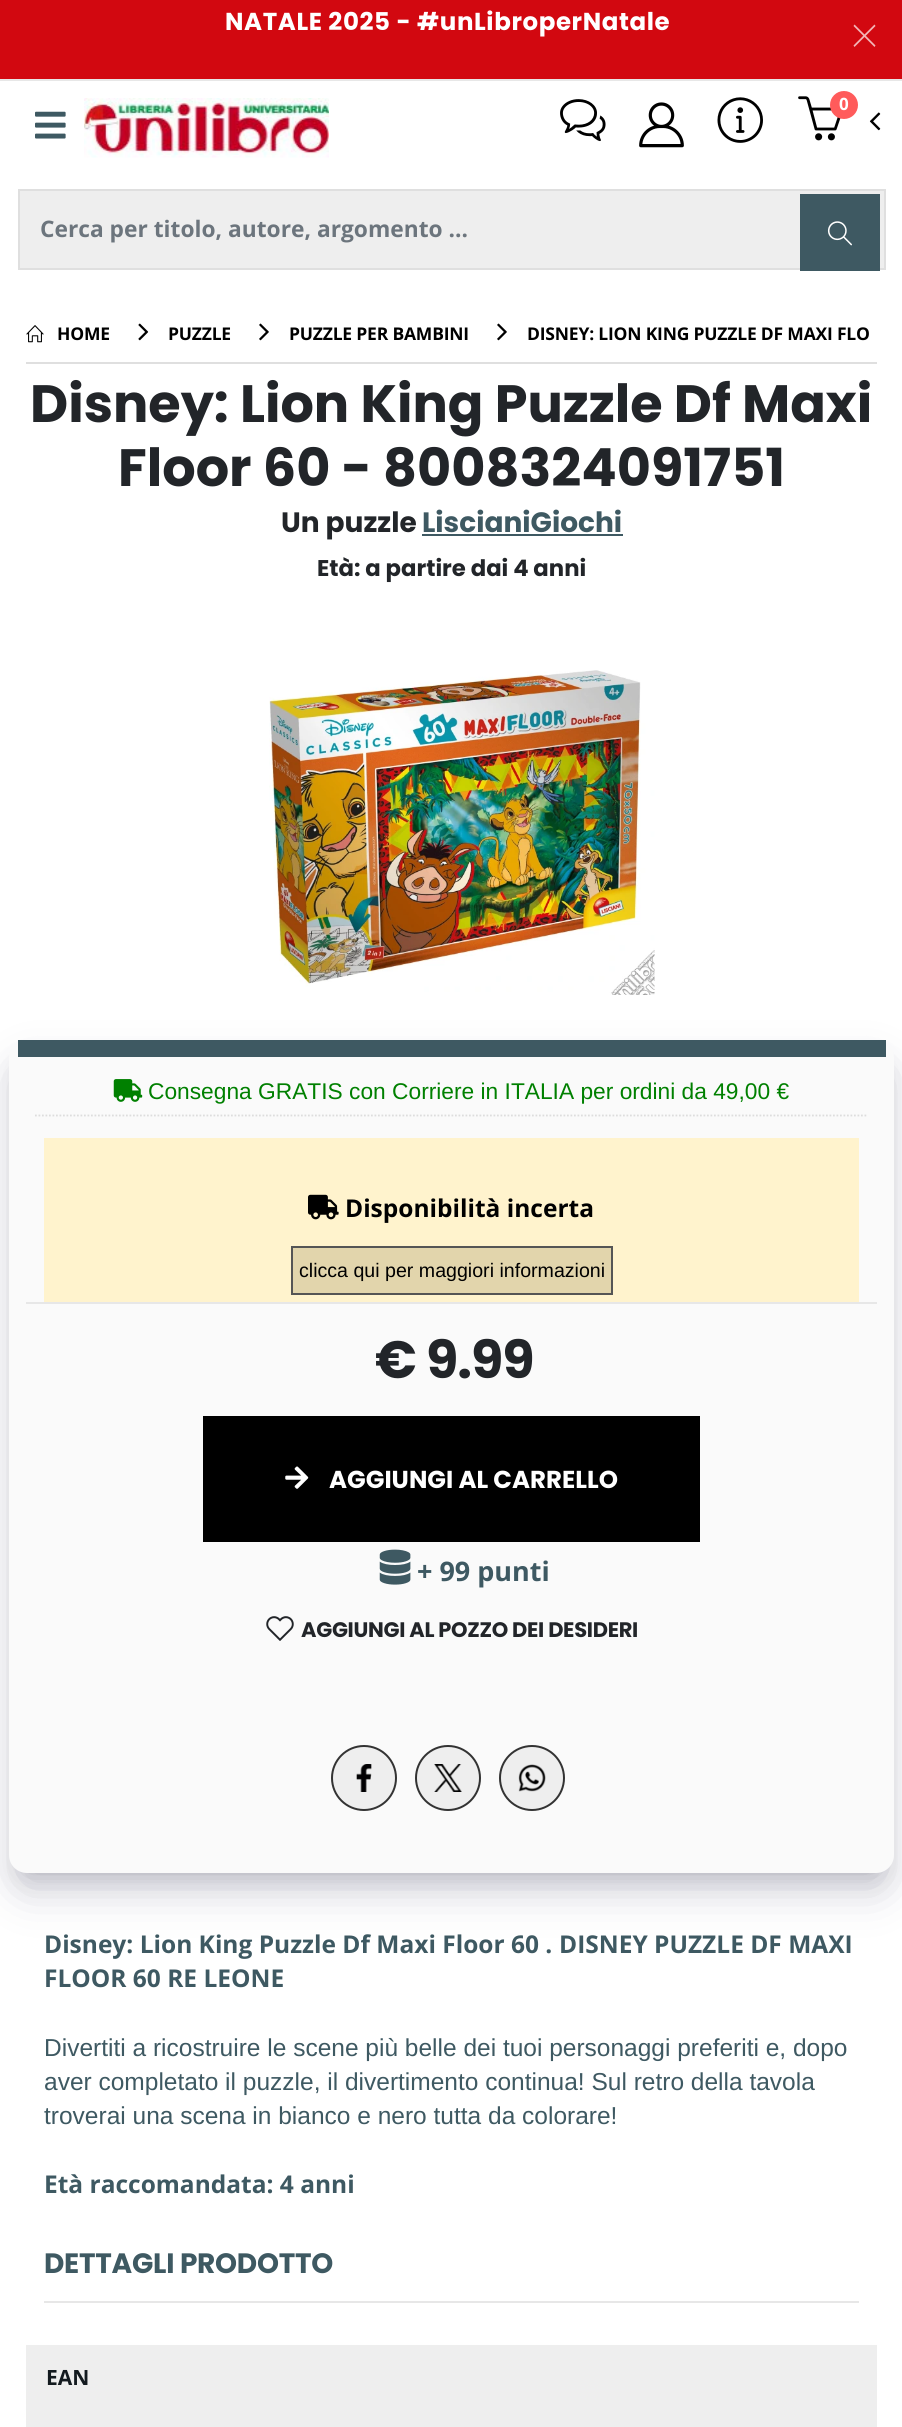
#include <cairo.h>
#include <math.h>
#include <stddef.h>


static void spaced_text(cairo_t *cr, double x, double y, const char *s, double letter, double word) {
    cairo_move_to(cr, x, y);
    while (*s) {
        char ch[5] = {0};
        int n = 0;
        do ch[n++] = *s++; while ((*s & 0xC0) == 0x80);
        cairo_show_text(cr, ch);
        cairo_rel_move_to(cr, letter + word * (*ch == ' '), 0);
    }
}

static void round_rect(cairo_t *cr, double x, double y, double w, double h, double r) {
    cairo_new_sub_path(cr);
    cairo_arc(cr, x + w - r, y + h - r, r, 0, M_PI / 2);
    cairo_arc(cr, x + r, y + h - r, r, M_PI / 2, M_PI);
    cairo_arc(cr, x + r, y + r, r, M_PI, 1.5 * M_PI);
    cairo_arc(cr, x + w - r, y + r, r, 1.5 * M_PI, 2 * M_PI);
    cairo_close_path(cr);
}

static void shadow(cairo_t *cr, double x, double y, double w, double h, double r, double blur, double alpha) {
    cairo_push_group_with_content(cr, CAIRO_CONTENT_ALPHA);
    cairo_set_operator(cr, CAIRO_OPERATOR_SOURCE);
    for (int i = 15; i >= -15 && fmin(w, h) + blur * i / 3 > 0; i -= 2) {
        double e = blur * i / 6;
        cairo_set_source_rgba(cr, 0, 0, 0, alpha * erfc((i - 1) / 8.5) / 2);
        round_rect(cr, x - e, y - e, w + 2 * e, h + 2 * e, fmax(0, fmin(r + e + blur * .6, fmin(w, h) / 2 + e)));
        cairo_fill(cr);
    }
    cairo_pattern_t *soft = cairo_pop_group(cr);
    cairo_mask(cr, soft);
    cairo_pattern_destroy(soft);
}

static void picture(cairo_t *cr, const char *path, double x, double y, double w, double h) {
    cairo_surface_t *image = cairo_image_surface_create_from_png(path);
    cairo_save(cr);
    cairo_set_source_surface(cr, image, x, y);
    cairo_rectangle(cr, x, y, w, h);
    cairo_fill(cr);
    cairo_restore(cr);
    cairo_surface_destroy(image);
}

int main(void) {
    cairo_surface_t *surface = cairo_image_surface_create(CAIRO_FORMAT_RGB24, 902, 2427);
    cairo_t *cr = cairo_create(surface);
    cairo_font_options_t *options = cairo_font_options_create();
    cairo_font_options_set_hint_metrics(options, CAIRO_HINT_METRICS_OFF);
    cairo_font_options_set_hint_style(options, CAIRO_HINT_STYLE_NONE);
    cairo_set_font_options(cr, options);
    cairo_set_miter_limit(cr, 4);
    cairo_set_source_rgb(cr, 1, 1, 1);
    cairo_paint(cr);
    cairo_set_source_rgb(cr, 0.824, 0.035, 0.063);
    cairo_rectangle(cr, 0, 0, 902, 79);
    cairo_fill(cr);
    cairo_select_font_face(cr, "Poppins", CAIRO_FONT_SLANT_NORMAL, CAIRO_FONT_WEIGHT_BOLD);
    cairo_set_font_size(cr, 24.5);
    cairo_set_source_rgb(cr, 1, 1, 1);
    spaced_text(cr, 225, 30, "NATALE 2025 - #unLibroperNatale", 0.6, 0);
    cairo_set_source_rgb(cr, 0.949, 0.71, 0.718);
    cairo_new_path(cr);
    cairo_move_to(cr, 854.5, 24.5);
    cairo_line_to(cr, 875.5, 45.5);
    cairo_line_to(cr, 874.5, 47);
    cairo_line_to(cr, 853.5, 26);
    cairo_close_path(cr);
    cairo_fill(cr);
    cairo_new_path(cr);
    cairo_move_to(cr, 874.5, 24.5);
    cairo_line_to(cr, 875.5, 26);
    cairo_line_to(cr, 854.5, 47);
    cairo_line_to(cr, 853.5, 45.5);
    cairo_close_path(cr);
    cairo_fill(cr);
    cairo_set_source_rgb(cr, 0.906, 0.906, 0.906);
    cairo_rectangle(cr, 0, 79, 902, 2);
    cairo_fill(cr);
    picture(cr, "img1.png", 35, 111, 31, 28);
    picture(cr, "img2.png", 84, 98, 245, 60);
    picture(cr, "img3.png", 560, 99, 46, 43);
    picture(cr, "img4.png", 639, 102, 45, 46);
    picture(cr, "img5.png", 717, 97, 46, 46);
    picture(cr, "img6.png", 798, 96, 43, 45);
    cairo_set_source_rgb(cr, 1, 0.357, 0.357);
    cairo_arc(cr, 844, 105, 14, 0, 2 * M_PI);
    cairo_fill(cr);
    cairo_select_font_face(cr, "Open Sans", CAIRO_FONT_SLANT_NORMAL, CAIRO_FONT_WEIGHT_BOLD);
    cairo_set_font_size(cr, 17);
    cairo_set_source_rgb(cr, 1, 1, 1);
    cairo_move_to(cr, 839, 110);
    cairo_show_text(cr, "0");
    picture(cr, "img7.png", 869, 112, 12, 19);
    cairo_set_source_rgb(cr, 0.933, 0.933, 0.933);
    cairo_rectangle(cr, 19, 190, 866, 79);
    cairo_fill_preserve(cr);
    cairo_set_source_rgb(cr, 0.875, 0.875, 0.875);
    cairo_stroke(cr);
    cairo_set_font_size(cr, 22.75);
    cairo_set_source_rgb(cr, 0.424, 0.459, 0.49);
    cairo_move_to(cr, 40, 237);
    cairo_show_text(cr, "Cerca per titolo, autore, argomento ...");
    cairo_set_source_rgb(cr, 0.243, 0.349, 0.384);
    cairo_rectangle(cr, 800, 194, 80, 77);
    cairo_fill(cr);
    picture(cr, "img8.png", 827, 221, 25, 25);
    cairo_set_source_rgb(cr, 0.875, 0.875, 0.875);
    cairo_rectangle(cr, 26, 362, 851, 2);
    cairo_fill(cr);
    picture(cr, "img9.png", 26, 325, 18, 18);
    cairo_set_font_size(cr, 17.5);
    cairo_set_source_rgb(cr, 0, 0, 0);
    spaced_text(cr, 57, 340, "HOME", -0.2, 0);
    picture(cr, "img10.png", 138, 323, 11, 18);
    spaced_text(cr, 168, 340, "PUZZLE", -0.2, 0);
    picture(cr, "img11.png", 259, 323, 10, 18);
    spaced_text(cr, 289, 340, "PUZZLE PER BAMBINI", -0.2, 0);
    picture(cr, "img11.png", 497, 323, 10, 18);
    spaced_text(cr, 527, 340, "DISNEY: LION KING PUZZLE DF MAXI FLO", -0.2, 0);
    cairo_select_font_face(cr, "Poppins", CAIRO_FONT_SLANT_NORMAL, CAIRO_FONT_WEIGHT_BOLD);
    cairo_set_font_size(cr, 52.5);
    cairo_set_source_rgb(cr, 0.133, 0.145, 0.161);
    cairo_move_to(cr, 30, 422);
    cairo_show_text(cr, "Disney: Lion King Puzzle Df Maxi");
    cairo_move_to(cr, 118, 486);
    cairo_show_text(cr, "Floor 60 - 8008324091751");
    cairo_set_font_size(cr, 28);
    cairo_move_to(cr, 281, 532);
    cairo_show_text(cr, "Un puzzle");
    cairo_set_source_rgb(cr, 0.243, 0.349, 0.384);
    cairo_move_to(cr, 422, 532);
    cairo_show_text(cr, "LiscianiGiochi");
    cairo_rectangle(cr, 422, 534, 201, 2);
    cairo_fill(cr);
    cairo_set_font_size(cr, 22.75);
    cairo_set_source_rgb(cr, 0.133, 0.145, 0.161);
    cairo_move_to(cr, 317, 576);
    cairo_show_text(cr, "Età: a partire dai 4 anni");
    picture(cr, "img12.png", 269, 670, 386, 325);
    cairo_set_source_rgb(cr, 0, 0, 0);
    shadow(cr, 23, 1068, 857, 805, 4, 14, 0.2);
    cairo_set_source_rgb(cr, 0.196, 0.196, 0.365);
    shadow(cr, 18, 1071, 868, 816, 9, 23.5, 0.25);
    cairo_set_source_rgb(cr, 0.98, 0.98, 0.98);
    round_rect(cr, 9, 1040, 885, 833, 18);
    cairo_fill(cr);
    cairo_set_source_rgb(cr, 0.243, 0.349, 0.384);
    cairo_rectangle(cr, 18, 1040, 868, 17);
    cairo_fill(cr);
    cairo_new_path(cr);
    cairo_move_to(cr, 35, 1115.5);
    cairo_line_to(cr, 868, 1115.5);
    cairo_set_source_rgb(cr, 0.867, 0.867, 0.867);
    cairo_set_line_width(cr, 1.8);
    cairo_set_dash(cr, (double[]){1.75, 1.75}, 2, 0);
    cairo_stroke(cr);
    picture(cr, "img13.png", 113, 1079, 30, 23);
    cairo_select_font_face(cr, "Liberation Sans", CAIRO_FONT_SLANT_NORMAL, CAIRO_FONT_WEIGHT_NORMAL);
    cairo_set_source_rgb(cr, 0, 0.502, 0);
    cairo_move_to(cr, 148, 1099);
    cairo_show_text(cr, "Consegna GRATIS con Corriere in ITALIA per ordini da 49,00 €");
    cairo_set_source_rgb(cr, 1, 0.953, 0.804);
    cairo_rectangle(cr, 44, 1138, 815, 164);
    cairo_fill(cr);
    picture(cr, "img14.png", 308, 1194, 31, 26);
    cairo_select_font_face(cr, "Open Sans", CAIRO_FONT_SLANT_NORMAL, CAIRO_FONT_WEIGHT_BOLD);
    cairo_set_font_size(cr, 24.5);
    cairo_set_source_rgb(cr, 0, 0, 0);
    cairo_move_to(cr, 345, 1217);
    cairo_show_text(cr, "Disponibilità incerta");
    cairo_set_source_rgb(cr, 0.886, 0.835, 0.675);
    cairo_rectangle(cr, 292, 1247, 320, 47);
    cairo_fill_preserve(cr);
    cairo_set_source_rgb(cr, 0.333, 0.333, 0.333);
    cairo_set_line_width(cr, 2);
    cairo_set_dash(cr, NULL, 0, 0);
    cairo_stroke(cr);
    cairo_select_font_face(cr, "Liberation Sans", CAIRO_FONT_SLANT_NORMAL, CAIRO_FONT_WEIGHT_NORMAL);
    cairo_set_font_size(cr, 19.6);
    cairo_set_source_rgb(cr, 0, 0, 0);
    cairo_move_to(cr, 299, 1277);
    cairo_show_text(cr, "clicca qui per maggiori informazioni");
    cairo_set_source_rgb(cr, 0.906, 0.906, 0.906);
    cairo_rectangle(cr, 26, 1302, 851, 2);
    cairo_fill(cr);
    cairo_select_font_face(cr, "Poppins", CAIRO_FONT_SLANT_NORMAL, CAIRO_FONT_WEIGHT_BOLD);
    cairo_set_font_size(cr, 52.5);
    cairo_set_source_rgb(cr, 0.133, 0.145, 0.161);
    spaced_text(cr, 375, 1378, "€ 9.99", -1, 0);
    cairo_set_source_rgb(cr, 0, 0, 0);
    cairo_rectangle(cr, 203, 1416, 497, 126);
    cairo_fill(cr);
    picture(cr, "img15.png", 285, 1466, 24, 23);
    cairo_set_font_size(cr, 24.5);
    cairo_set_source_rgb(cr, 1, 1, 1);
    cairo_move_to(cr, 329, 1488);
    cairo_show_text(cr, "AGGIUNGI AL CARRELLO");
    picture(cr, "img16.png", 379, 1549, 32, 36);
    cairo_select_font_face(cr, "Open Sans", CAIRO_FONT_SLANT_NORMAL, CAIRO_FONT_WEIGHT_BOLD);
    cairo_set_font_size(cr, 27);
    cairo_set_source_rgb(cr, 0.243, 0.349, 0.384);
    cairo_move_to(cr, 417, 1581);
    cairo_show_text(cr, "+ 99 punti");
    picture(cr, "img17.png", 266, 1616, 28, 25);
    cairo_select_font_face(cr, "Poppins", CAIRO_FONT_SLANT_NORMAL, CAIRO_FONT_WEIGHT_BOLD);
    cairo_set_font_size(cr, 21);
    cairo_set_source_rgb(cr, 0.133, 0.145, 0.161);
    spaced_text(cr, 301, 1637, "AGGIUNGI AL POZZO DEI DESIDERI", -0.3, 0);
    cairo_set_source_rgb(cr, 0.933, 0.933, 0.933);
    cairo_new_path(cr);
    cairo_arc(cr, 364, 1778, 32, 0, 2 * M_PI);
    cairo_fill_preserve(cr);
    cairo_set_source_rgb(cr, 0.2, 0.2, 0.2);
    cairo_stroke(cr);
    picture(cr, "img18.png", 356, 1764, 16, 28);
    cairo_set_source_rgb(cr, 0.933, 0.933, 0.933);
    cairo_arc(cr, 448, 1778, 32, 0, 2 * M_PI);
    cairo_fill_preserve(cr);
    cairo_set_source_rgb(cr, 0.2, 0.2, 0.2);
    cairo_stroke(cr);
    picture(cr, "img19.png", 434, 1764, 28, 28);
    cairo_set_source_rgb(cr, 0.933, 0.933, 0.933);
    cairo_arc(cr, 532, 1778, 32, 0, 2 * M_PI);
    cairo_fill_preserve(cr);
    cairo_set_source_rgb(cr, 0.2, 0.2, 0.2);
    cairo_stroke(cr);
    picture(cr, "img20.png", 518, 1764, 28, 28);
    cairo_select_font_face(cr, "Open Sans", CAIRO_FONT_SLANT_NORMAL, CAIRO_FONT_WEIGHT_BOLD);
    cairo_set_font_size(cr, 24.5);
    cairo_set_source_rgb(cr, 0.243, 0.349, 0.384);
    cairo_move_to(cr, 44, 1953);
    cairo_show_text(cr, "Disney: Lion King Puzzle Df Maxi Floor 60 .");
    cairo_move_to(cr, 559, 1953);
    cairo_show_text(cr, "DISNEY PUZZLE DF MAXI");
    cairo_move_to(cr, 44, 1987);
    cairo_show_text(cr, "FLOOR 60 RE LEONE");
    cairo_select_font_face(cr, "Liberation Sans", CAIRO_FONT_SLANT_NORMAL, CAIRO_FONT_WEIGHT_NORMAL);
    cairo_move_to(cr, 44, 2056);
    cairo_show_text(cr, "Divertiti a ricostruire le scene più belle dei tuoi personaggi preferiti e, dopo");
    cairo_move_to(cr, 44, 2090);
    cairo_show_text(cr, "aver completato il puzzle, il divertimento continua! Sul retro della tavola");
    cairo_move_to(cr, 44, 2124);
    cairo_show_text(cr, "troverai una scena in bianco e nero tutta da colorare!");
    cairo_select_font_face(cr, "Open Sans", CAIRO_FONT_SLANT_NORMAL, CAIRO_FONT_WEIGHT_BOLD);
    cairo_move_to(cr, 44, 2193);
    cairo_show_text(cr, "Età raccomandata: 4 anni");
    cairo_set_source_rgb(cr, 0.906, 0.906, 0.906);
    cairo_rectangle(cr, 44, 2301, 815, 2);
    cairo_fill(cr);
    cairo_select_font_face(cr, "Poppins", CAIRO_FONT_SLANT_NORMAL, CAIRO_FONT_WEIGHT_BOLD);
    cairo_set_font_size(cr, 28);
    cairo_set_source_rgb(cr, 0.243, 0.349, 0.384);
    spaced_text(cr, 44, 2273, "DETTAGLI PRODOTTO", -0.25, 0);
    cairo_set_source_rgb(cr, 0.933, 0.933, 0.933);
    cairo_rectangle(cr, 26, 2345, 851, 82);
    cairo_fill(cr);
    cairo_select_font_face(cr, "Open Sans", CAIRO_FONT_SLANT_NORMAL, CAIRO_FONT_WEIGHT_BOLD);
    cairo_set_font_size(cr, 21);
    cairo_set_source_rgb(cr, 0.078, 0.102, 0.122);
    cairo_move_to(cr, 46, 2385);
    cairo_show_text(cr, "EAN");
    cairo_surface_write_to_png(surface, "page.png");
    cairo_font_options_destroy(options);
    cairo_destroy(cr);
    cairo_surface_destroy(surface);
    return 0;
}
